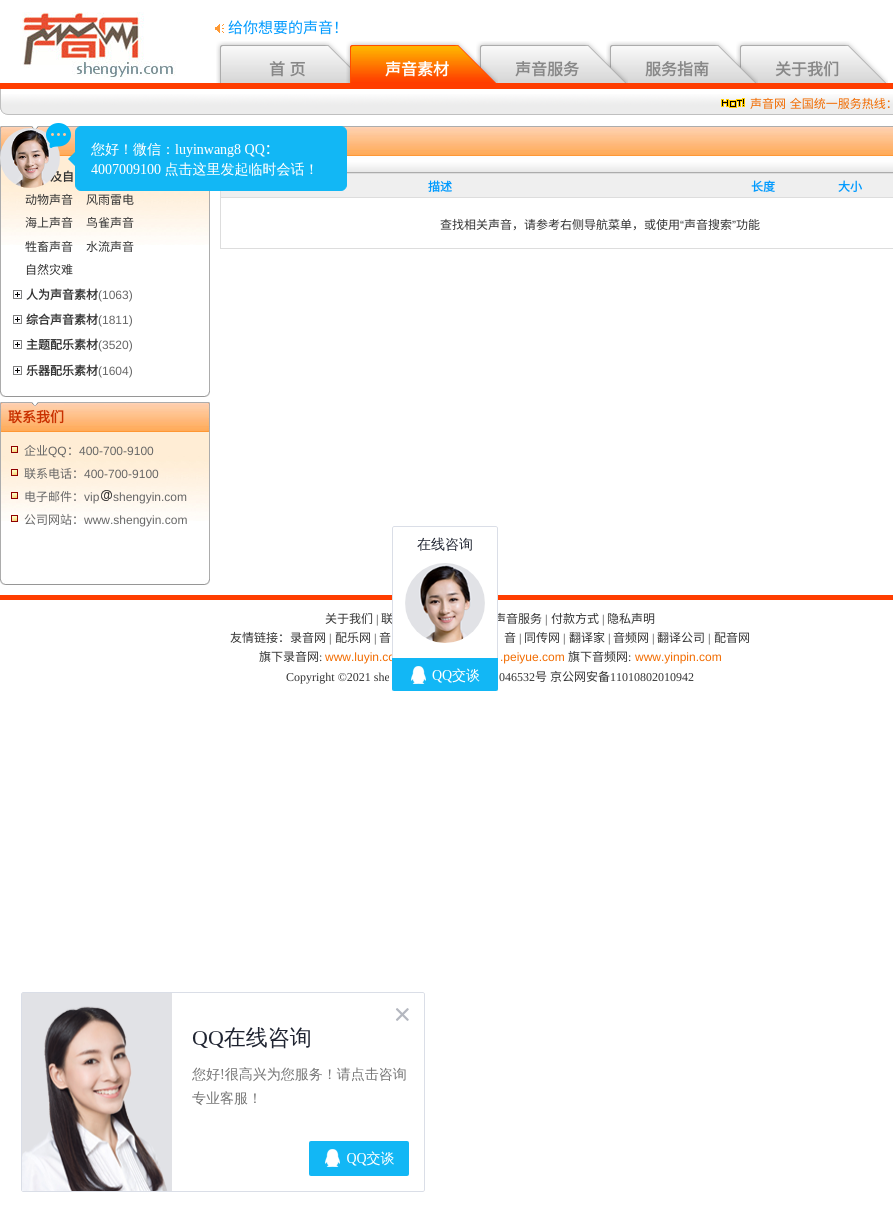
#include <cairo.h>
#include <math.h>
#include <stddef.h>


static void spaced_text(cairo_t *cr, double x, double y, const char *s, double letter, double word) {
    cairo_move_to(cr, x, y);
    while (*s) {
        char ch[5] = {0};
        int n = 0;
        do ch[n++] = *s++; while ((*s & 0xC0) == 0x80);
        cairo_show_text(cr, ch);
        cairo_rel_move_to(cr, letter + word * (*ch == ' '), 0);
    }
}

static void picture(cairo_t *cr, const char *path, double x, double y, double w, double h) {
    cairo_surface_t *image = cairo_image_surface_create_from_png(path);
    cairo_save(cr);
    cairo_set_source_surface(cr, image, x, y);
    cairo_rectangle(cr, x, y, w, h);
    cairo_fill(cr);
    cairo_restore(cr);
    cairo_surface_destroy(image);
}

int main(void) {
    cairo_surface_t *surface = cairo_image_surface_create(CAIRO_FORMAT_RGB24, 893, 1216);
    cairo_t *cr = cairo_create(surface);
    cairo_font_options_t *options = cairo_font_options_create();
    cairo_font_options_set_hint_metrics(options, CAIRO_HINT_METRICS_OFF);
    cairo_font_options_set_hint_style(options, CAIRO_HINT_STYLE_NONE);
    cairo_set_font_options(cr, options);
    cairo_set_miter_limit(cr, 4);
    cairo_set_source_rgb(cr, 1, 1, 1);
    cairo_paint(cr);
    picture(cr, "img1.png", 20, 12, 156, 68);
    picture(cr, "img2.png", 215, 24, 9, 9);
    cairo_select_font_face(cr, "Noto Sans CJK SC", CAIRO_FONT_SLANT_NORMAL, CAIRO_FONT_WEIGHT_NORMAL);
    cairo_set_font_size(cr, 15);
    cairo_set_source_rgb(cr, 0, 0.604, 0.996);
    cairo_move_to(cr, 228, 33);
    cairo_show_text(cr, "给你想要的声音！");
    picture(cr, "img3.png", 216, 41, 134, 42);
    cairo_select_font_face(cr, "Noto Sans CJK SC", CAIRO_FONT_SLANT_NORMAL, CAIRO_FONT_WEIGHT_BOLD);
    cairo_set_font_size(cr, 16);
    cairo_set_source_rgb(cr, 0.533, 0.533, 0.533);
    spaced_text(cr, 269, 75, "首 页", 0, 1);
    picture(cr, "img6.png", 736, 41, 152, 42);
    picture(cr, "img5.png", 606, 41, 152, 42);
    picture(cr, "img5.png", 476, 41, 152, 42);
    picture(cr, "img4.png", 346, 41, 152, 42);
    cairo_set_source_rgb(cr, 1, 1, 1);
    cairo_move_to(cr, 385, 75);
    cairo_show_text(cr, "声音素材");
    cairo_set_source_rgb(cr, 0.533, 0.533, 0.533);
    cairo_move_to(cr, 515, 75);
    cairo_show_text(cr, "声音服务");
    cairo_move_to(cr, 645, 75);
    cairo_show_text(cr, "服务指南");
    cairo_move_to(cr, 775, 75);
    cairo_show_text(cr, "关于我们");
    picture(cr, "img7.png", 0, 89, 893, 26);
    cairo_set_source_rgb(cr, 1, 0.239, 0);
    cairo_rectangle(cr, 0, 83, 893, 6);
    cairo_fill(cr);
    picture(cr, "img8.png", 721, 98, 24, 10);
    cairo_select_font_face(cr, "Noto Sans CJK SC", CAIRO_FONT_SLANT_NORMAL, CAIRO_FONT_WEIGHT_NORMAL);
    cairo_set_font_size(cr, 12);
    cairo_set_source_rgb(cr, 0.945, 0.42, 0);
    spaced_text(cr, 750, 108, "声音网 全国统一服务热线：", 0, 1);
    picture(cr, "img10.png", 0, 126, 81, 30);
    picture(cr, "img11.png", 1, 156, 208, 89);
    cairo_set_source_rgb(cr, 0.675, 0.675, 0.675);
    cairo_rectangle(cr, 0, 156, 1, 235);
    cairo_fill(cr);
    cairo_select_font_face(cr, "Noto Sans CJK SC", CAIRO_FONT_SLANT_NORMAL, CAIRO_FONT_WEIGHT_BOLD);
    cairo_set_source_rgb(cr, 0.2, 0.2, 0.2);
    cairo_move_to(cr, 50, 181);
    cairo_show_text(cr, "及自");
    picture(cr, "img17.png", 341, 126, 552, 47);
    cairo_set_source_rgb(cr, 0.867, 0.867, 0.867);
    cairo_rectangle(cr, 220, 173, 673, 76);
    cairo_fill(cr);
    cairo_set_source_rgb(cr, 0.937, 0.937, 0.937);
    cairo_rectangle(cr, 221, 174, 672, 23);
    cairo_fill(cr);
    picture(cr, "img9.png", 0, 123, 347, 68);
    cairo_set_source_rgb(cr, 0.675, 0.675, 0.675);
    cairo_rectangle(cr, 209, 191, 1, 200);
    cairo_fill(cr);
    cairo_select_font_face(cr, "Noto Sans CJK SC", CAIRO_FONT_SLANT_NORMAL, CAIRO_FONT_WEIGHT_NORMAL);
    cairo_set_source_rgb(cr, 0.2, 0.2, 0.2);
    cairo_move_to(cr, 25, 204);
    cairo_show_text(cr, "动物声音");
    cairo_move_to(cr, 86, 204);
    cairo_show_text(cr, "风雨雷电");
    cairo_move_to(cr, 25, 227);
    cairo_show_text(cr, "海上声音");
    cairo_move_to(cr, 86, 227);
    cairo_show_text(cr, "鸟雀声音");
    cairo_move_to(cr, 25, 251);
    cairo_show_text(cr, "牲畜声音");
    cairo_move_to(cr, 86, 251);
    cairo_show_text(cr, "水流声音");
    cairo_move_to(cr, 25, 274);
    cairo_show_text(cr, "自然灾难");
    picture(cr, "img12.png", 13, 290, 9, 9);
    cairo_select_font_face(cr, "Noto Sans CJK SC", CAIRO_FONT_SLANT_NORMAL, CAIRO_FONT_WEIGHT_BOLD);
    cairo_move_to(cr, 26, 299);
    cairo_show_text(cr, "人为声音素材");
    cairo_select_font_face(cr, "Liberation Sans", CAIRO_FONT_SLANT_NORMAL, CAIRO_FONT_WEIGHT_NORMAL);
    cairo_set_source_rgb(cr, 0.4, 0.4, 0.4);
    cairo_move_to(cr, 98, 299);
    cairo_show_text(cr, "(1063)");
    picture(cr, "img12.png", 13, 315, 9, 9);
    cairo_select_font_face(cr, "Noto Sans CJK SC", CAIRO_FONT_SLANT_NORMAL, CAIRO_FONT_WEIGHT_BOLD);
    cairo_set_source_rgb(cr, 0.2, 0.2, 0.2);
    cairo_move_to(cr, 26, 324);
    cairo_show_text(cr, "综合声音素材");
    cairo_select_font_face(cr, "Liberation Sans", CAIRO_FONT_SLANT_NORMAL, CAIRO_FONT_WEIGHT_NORMAL);
    cairo_set_source_rgb(cr, 0.4, 0.4, 0.4);
    cairo_move_to(cr, 98, 324);
    cairo_show_text(cr, "(1811)");
    picture(cr, "img12.png", 13, 340, 9, 9);
    cairo_select_font_face(cr, "Noto Sans CJK SC", CAIRO_FONT_SLANT_NORMAL, CAIRO_FONT_WEIGHT_BOLD);
    cairo_set_source_rgb(cr, 0.2, 0.2, 0.2);
    cairo_move_to(cr, 26, 349);
    cairo_show_text(cr, "主题配乐素材");
    cairo_select_font_face(cr, "Liberation Sans", CAIRO_FONT_SLANT_NORMAL, CAIRO_FONT_WEIGHT_NORMAL);
    cairo_set_source_rgb(cr, 0.4, 0.4, 0.4);
    cairo_move_to(cr, 98, 349);
    cairo_show_text(cr, "(3520)");
    picture(cr, "img12.png", 13, 366, 9, 9);
    cairo_select_font_face(cr, "Noto Sans CJK SC", CAIRO_FONT_SLANT_NORMAL, CAIRO_FONT_WEIGHT_BOLD);
    cairo_set_source_rgb(cr, 0.2, 0.2, 0.2);
    cairo_move_to(cr, 26, 375);
    cairo_show_text(cr, "乐器配乐素材");
    cairo_select_font_face(cr, "Liberation Sans", CAIRO_FONT_SLANT_NORMAL, CAIRO_FONT_WEIGHT_NORMAL);
    cairo_set_source_rgb(cr, 0.4, 0.4, 0.4);
    cairo_move_to(cr, 98, 375);
    cairo_show_text(cr, "(1604)");
    picture(cr, "img13.png", 0, 391, 210, 6);
    picture(cr, "img14.png", 0, 402, 210, 30);
    cairo_select_font_face(cr, "Noto Sans CJK SC", CAIRO_FONT_SLANT_NORMAL, CAIRO_FONT_WEIGHT_BOLD);
    cairo_set_font_size(cr, 14);
    cairo_set_source_rgb(cr, 0.788, 0.192, 0);
    cairo_move_to(cr, 8, 422);
    cairo_show_text(cr, "联系我们");
    picture(cr, "img11.png", 1, 432, 208, 89);
    cairo_set_source_rgb(cr, 0.675, 0.675, 0.675);
    cairo_rectangle(cr, 209, 432, 1, 147);
    cairo_fill(cr);
    cairo_rectangle(cr, 0, 432, 1, 147);
    cairo_fill(cr);
    picture(cr, "img15.png", 11, 446, 7, 7);
    cairo_select_font_face(cr, "Noto Sans CJK SC", CAIRO_FONT_SLANT_NORMAL, CAIRO_FONT_WEIGHT_NORMAL);
    cairo_set_font_size(cr, 12);
    cairo_set_source_rgb(cr, 0.4, 0.4, 0.4);
    cairo_move_to(cr, 24, 455);
    cairo_show_text(cr, "企业");
    cairo_select_font_face(cr, "Liberation Sans", CAIRO_FONT_SLANT_NORMAL, CAIRO_FONT_WEIGHT_NORMAL);
    cairo_move_to(cr, 48, 455);
    cairo_show_text(cr, "QQ");
    cairo_select_font_face(cr, "Noto Sans CJK SC", CAIRO_FONT_SLANT_NORMAL, CAIRO_FONT_WEIGHT_NORMAL);
    cairo_move_to(cr, 67, 455);
    cairo_show_text(cr, "：");
    cairo_select_font_face(cr, "Liberation Sans", CAIRO_FONT_SLANT_NORMAL, CAIRO_FONT_WEIGHT_NORMAL);
    cairo_move_to(cr, 79, 455);
    cairo_show_text(cr, "400-700-9100");
    picture(cr, "img15.png", 11, 469, 7, 7);
    cairo_select_font_face(cr, "Noto Sans CJK SC", CAIRO_FONT_SLANT_NORMAL, CAIRO_FONT_WEIGHT_NORMAL);
    cairo_move_to(cr, 24, 478);
    cairo_show_text(cr, "联系电话：");
    cairo_select_font_face(cr, "Liberation Sans", CAIRO_FONT_SLANT_NORMAL, CAIRO_FONT_WEIGHT_NORMAL);
    cairo_move_to(cr, 84, 478);
    cairo_show_text(cr, "400-700-9100");
    picture(cr, "img15.png", 11, 492, 7, 7);
    cairo_select_font_face(cr, "Noto Sans CJK SC", CAIRO_FONT_SLANT_NORMAL, CAIRO_FONT_WEIGHT_NORMAL);
    cairo_move_to(cr, 24, 501);
    cairo_show_text(cr, "电子邮件：");
    cairo_select_font_face(cr, "Liberation Sans", CAIRO_FONT_SLANT_NORMAL, CAIRO_FONT_WEIGHT_NORMAL);
    cairo_move_to(cr, 84, 501);
    cairo_show_text(cr, "vip");
    picture(cr, "img16.png", 101, 490, 11, 11);
    cairo_move_to(cr, 113, 501);
    cairo_show_text(cr, "shengyin.com");
    picture(cr, "img15.png", 11, 515, 7, 7);
    cairo_select_font_face(cr, "Noto Sans CJK SC", CAIRO_FONT_SLANT_NORMAL, CAIRO_FONT_WEIGHT_NORMAL);
    cairo_move_to(cr, 24, 524);
    cairo_show_text(cr, "公司网站：");
    cairo_select_font_face(cr, "Liberation Sans", CAIRO_FONT_SLANT_NORMAL, CAIRO_FONT_WEIGHT_NORMAL);
    cairo_move_to(cr, 84, 524);
    cairo_show_text(cr, "www.shengyin.com");
    picture(cr, "img13.png", 0, 579, 210, 6);
    cairo_select_font_face(cr, "Noto Sans CJK SC", CAIRO_FONT_SLANT_NORMAL, CAIRO_FONT_WEIGHT_BOLD);
    cairo_set_source_rgb(cr, 0, 0.604, 0.996);
    cairo_move_to(cr, 428, 191);
    cairo_show_text(cr, "描述");
    cairo_move_to(cr, 751, 191);
    cairo_show_text(cr, "长度");
    cairo_move_to(cr, 838, 191);
    cairo_show_text(cr, "大小");
    cairo_set_source_rgb(cr, 1, 1, 1);
    cairo_rectangle(cr, 221, 198, 672, 50);
    cairo_fill(cr);
    cairo_select_font_face(cr, "Noto Sans CJK SC", CAIRO_FONT_SLANT_NORMAL, CAIRO_FONT_WEIGHT_NORMAL);
    cairo_set_source_rgb(cr, 0.2, 0.2, 0.2);
    cairo_move_to(cr, 440, 229);
    cairo_show_text(cr, "查找相关声音，请参考右侧导航菜单，或使用");
    cairo_select_font_face(cr, "Liberation Sans", CAIRO_FONT_SLANT_NORMAL, CAIRO_FONT_WEIGHT_NORMAL);
    cairo_move_to(cr, 680, 229);
    cairo_show_text(cr, "“");
    cairo_select_font_face(cr, "Noto Sans CJK SC", CAIRO_FONT_SLANT_NORMAL, CAIRO_FONT_WEIGHT_NORMAL);
    cairo_move_to(cr, 684, 229);
    cairo_show_text(cr, "声音搜索");
    cairo_select_font_face(cr, "Liberation Sans", CAIRO_FONT_SLANT_NORMAL, CAIRO_FONT_WEIGHT_NORMAL);
    cairo_move_to(cr, 732, 229);
    cairo_show_text(cr, "”");
    cairo_select_font_face(cr, "Noto Sans CJK SC", CAIRO_FONT_SLANT_NORMAL, CAIRO_FONT_WEIGHT_NORMAL);
    cairo_move_to(cr, 736, 229);
    cairo_show_text(cr, "功能");
    cairo_set_source_rgb(cr, 1, 0.239, 0);
    cairo_rectangle(cr, 0, 595, 893, 5);
    cairo_fill(cr);
    cairo_set_source_rgb(cr, 0.2, 0.2, 0.2);
    cairo_move_to(cr, 381, 623);
    cairo_show_text(cr, "联");
    cairo_move_to(cr, 494, 623);
    cairo_show_text(cr, "声音服务");
    cairo_select_font_face(cr, "Liberation Sans", CAIRO_FONT_SLANT_NORMAL, CAIRO_FONT_WEIGHT_NORMAL);
    cairo_set_source_rgb(cr, 0.945, 0.42, 0);
    cairo_move_to(cr, 325, 661);
    cairo_show_text(cr, "www.luyin.co");
    picture(cr, "img18.png", 392, 526, 106, 165);
    cairo_select_font_face(cr, "Noto Sans CJK SC", CAIRO_FONT_SLANT_NORMAL, CAIRO_FONT_WEIGHT_NORMAL);
    cairo_set_source_rgb(cr, 0.2, 0.2, 0.2);
    cairo_move_to(cr, 325, 623);
    cairo_show_text(cr, "关于我们");
    cairo_select_font_face(cr, "Liberation Serif", CAIRO_FONT_SLANT_NORMAL, CAIRO_FONT_WEIGHT_NORMAL);
    cairo_move_to(cr, 376, 623);
    cairo_show_text(cr, "|");
    cairo_move_to(cr, 545, 623);
    cairo_show_text(cr, "|");
    cairo_select_font_face(cr, "Noto Sans CJK SC", CAIRO_FONT_SLANT_NORMAL, CAIRO_FONT_WEIGHT_NORMAL);
    cairo_move_to(cr, 551, 623);
    cairo_show_text(cr, "付款方式");
    cairo_select_font_face(cr, "Liberation Serif", CAIRO_FONT_SLANT_NORMAL, CAIRO_FONT_WEIGHT_NORMAL);
    cairo_move_to(cr, 602, 623);
    cairo_show_text(cr, "|");
    cairo_select_font_face(cr, "Noto Sans CJK SC", CAIRO_FONT_SLANT_NORMAL, CAIRO_FONT_WEIGHT_NORMAL);
    cairo_move_to(cr, 607, 623);
    cairo_show_text(cr, "隐私声明");
    cairo_move_to(cr, 230, 642);
    cairo_show_text(cr, "友情链接：录音网");
    cairo_select_font_face(cr, "Liberation Serif", CAIRO_FONT_SLANT_NORMAL, CAIRO_FONT_WEIGHT_NORMAL);
    cairo_move_to(cr, 329, 642);
    cairo_show_text(cr, "|");
    cairo_select_font_face(cr, "Noto Sans CJK SC", CAIRO_FONT_SLANT_NORMAL, CAIRO_FONT_WEIGHT_NORMAL);
    cairo_move_to(cr, 335, 642);
    cairo_show_text(cr, "配乐网");
    cairo_select_font_face(cr, "Liberation Serif", CAIRO_FONT_SLANT_NORMAL, CAIRO_FONT_WEIGHT_NORMAL);
    cairo_move_to(cr, 374, 642);
    cairo_show_text(cr, "|");
    cairo_select_font_face(cr, "Noto Sans CJK SC", CAIRO_FONT_SLANT_NORMAL, CAIRO_FONT_WEIGHT_NORMAL);
    cairo_move_to(cr, 379, 642);
    cairo_show_text(cr, "音");
    cairo_move_to(cr, 504, 642);
    cairo_show_text(cr, "音");
    cairo_select_font_face(cr, "Liberation Serif", CAIRO_FONT_SLANT_NORMAL, CAIRO_FONT_WEIGHT_NORMAL);
    cairo_move_to(cr, 519, 642);
    cairo_show_text(cr, "|");
    cairo_select_font_face(cr, "Noto Sans CJK SC", CAIRO_FONT_SLANT_NORMAL, CAIRO_FONT_WEIGHT_NORMAL);
    cairo_move_to(cr, 524, 642);
    cairo_show_text(cr, "同传网");
    cairo_select_font_face(cr, "Liberation Serif", CAIRO_FONT_SLANT_NORMAL, CAIRO_FONT_WEIGHT_NORMAL);
    cairo_move_to(cr, 563, 642);
    cairo_show_text(cr, "|");
    cairo_select_font_face(cr, "Noto Sans CJK SC", CAIRO_FONT_SLANT_NORMAL, CAIRO_FONT_WEIGHT_NORMAL);
    cairo_move_to(cr, 569, 642);
    cairo_show_text(cr, "翻译家");
    cairo_select_font_face(cr, "Liberation Serif", CAIRO_FONT_SLANT_NORMAL, CAIRO_FONT_WEIGHT_NORMAL);
    cairo_move_to(cr, 608, 642);
    cairo_show_text(cr, "|");
    cairo_select_font_face(cr, "Noto Sans CJK SC", CAIRO_FONT_SLANT_NORMAL, CAIRO_FONT_WEIGHT_NORMAL);
    cairo_move_to(cr, 613, 642);
    cairo_show_text(cr, "音频网");
    cairo_select_font_face(cr, "Liberation Serif", CAIRO_FONT_SLANT_NORMAL, CAIRO_FONT_WEIGHT_NORMAL);
    cairo_move_to(cr, 652, 642);
    cairo_show_text(cr, "|");
    cairo_select_font_face(cr, "Noto Sans CJK SC", CAIRO_FONT_SLANT_NORMAL, CAIRO_FONT_WEIGHT_NORMAL);
    cairo_move_to(cr, 657, 642);
    cairo_show_text(cr, "翻译公司");
    cairo_select_font_face(cr, "Liberation Serif", CAIRO_FONT_SLANT_NORMAL, CAIRO_FONT_WEIGHT_NORMAL);
    cairo_move_to(cr, 708, 642);
    cairo_show_text(cr, "|");
    cairo_select_font_face(cr, "Noto Sans CJK SC", CAIRO_FONT_SLANT_NORMAL, CAIRO_FONT_WEIGHT_NORMAL);
    cairo_move_to(cr, 714, 642);
    cairo_show_text(cr, "配音网");
    cairo_move_to(cr, 259, 661);
    cairo_show_text(cr, "旗下录音网");
    cairo_select_font_face(cr, "Liberation Serif", CAIRO_FONT_SLANT_NORMAL, CAIRO_FONT_WEIGHT_NORMAL);
    cairo_move_to(cr, 319, 661);
    cairo_show_text(cr, ":");
    cairo_select_font_face(cr, "Liberation Sans", CAIRO_FONT_SLANT_NORMAL, CAIRO_FONT_WEIGHT_NORMAL);
    cairo_set_source_rgb(cr, 0.945, 0.42, 0);
    cairo_move_to(cr, 500, 661);
    cairo_show_text(cr, ".peiyue.com");
    cairo_select_font_face(cr, "Noto Sans CJK SC", CAIRO_FONT_SLANT_NORMAL, CAIRO_FONT_WEIGHT_NORMAL);
    cairo_set_source_rgb(cr, 0.2, 0.2, 0.2);
    cairo_move_to(cr, 568, 661);
    cairo_show_text(cr, "旗下音频网");
    cairo_select_font_face(cr, "Liberation Serif", CAIRO_FONT_SLANT_NORMAL, CAIRO_FONT_WEIGHT_NORMAL);
    cairo_move_to(cr, 628, 661);
    cairo_show_text(cr, ":");
    cairo_select_font_face(cr, "Liberation Sans", CAIRO_FONT_SLANT_NORMAL, CAIRO_FONT_WEIGHT_NORMAL);
    cairo_set_source_rgb(cr, 0.945, 0.42, 0);
    cairo_move_to(cr, 635, 661);
    cairo_show_text(cr, "www.yinpin.com");
    cairo_select_font_face(cr, "Liberation Serif", CAIRO_FONT_SLANT_NORMAL, CAIRO_FONT_WEIGHT_NORMAL);
    cairo_set_source_rgb(cr, 0.2, 0.2, 0.2);
    cairo_move_to(cr, 286, 681);
    cairo_show_text(cr, "Copyright ©2021 she");
    cairo_move_to(cr, 499, 681);
    cairo_show_text(cr, "046532");
    cairo_select_font_face(cr, "Noto Sans CJK SC", CAIRO_FONT_SLANT_NORMAL, CAIRO_FONT_WEIGHT_NORMAL);
    cairo_move_to(cr, 535, 681);
    cairo_show_text(cr, "号");
    cairo_move_to(cr, 550, 681);
    cairo_show_text(cr, "京公网安备");
    cairo_select_font_face(cr, "Liberation Serif", CAIRO_FONT_SLANT_NORMAL, CAIRO_FONT_WEIGHT_NORMAL);
    cairo_move_to(cr, 610, 681);
    cairo_show_text(cr, "11010802010942");
    picture(cr, "img19.png", 21, 992, 404, 200);
    cairo_surface_write_to_png(surface, "page.png");
    cairo_font_options_destroy(options);
    cairo_destroy(cr);
    cairo_surface_destroy(surface);
    return 0;
}
